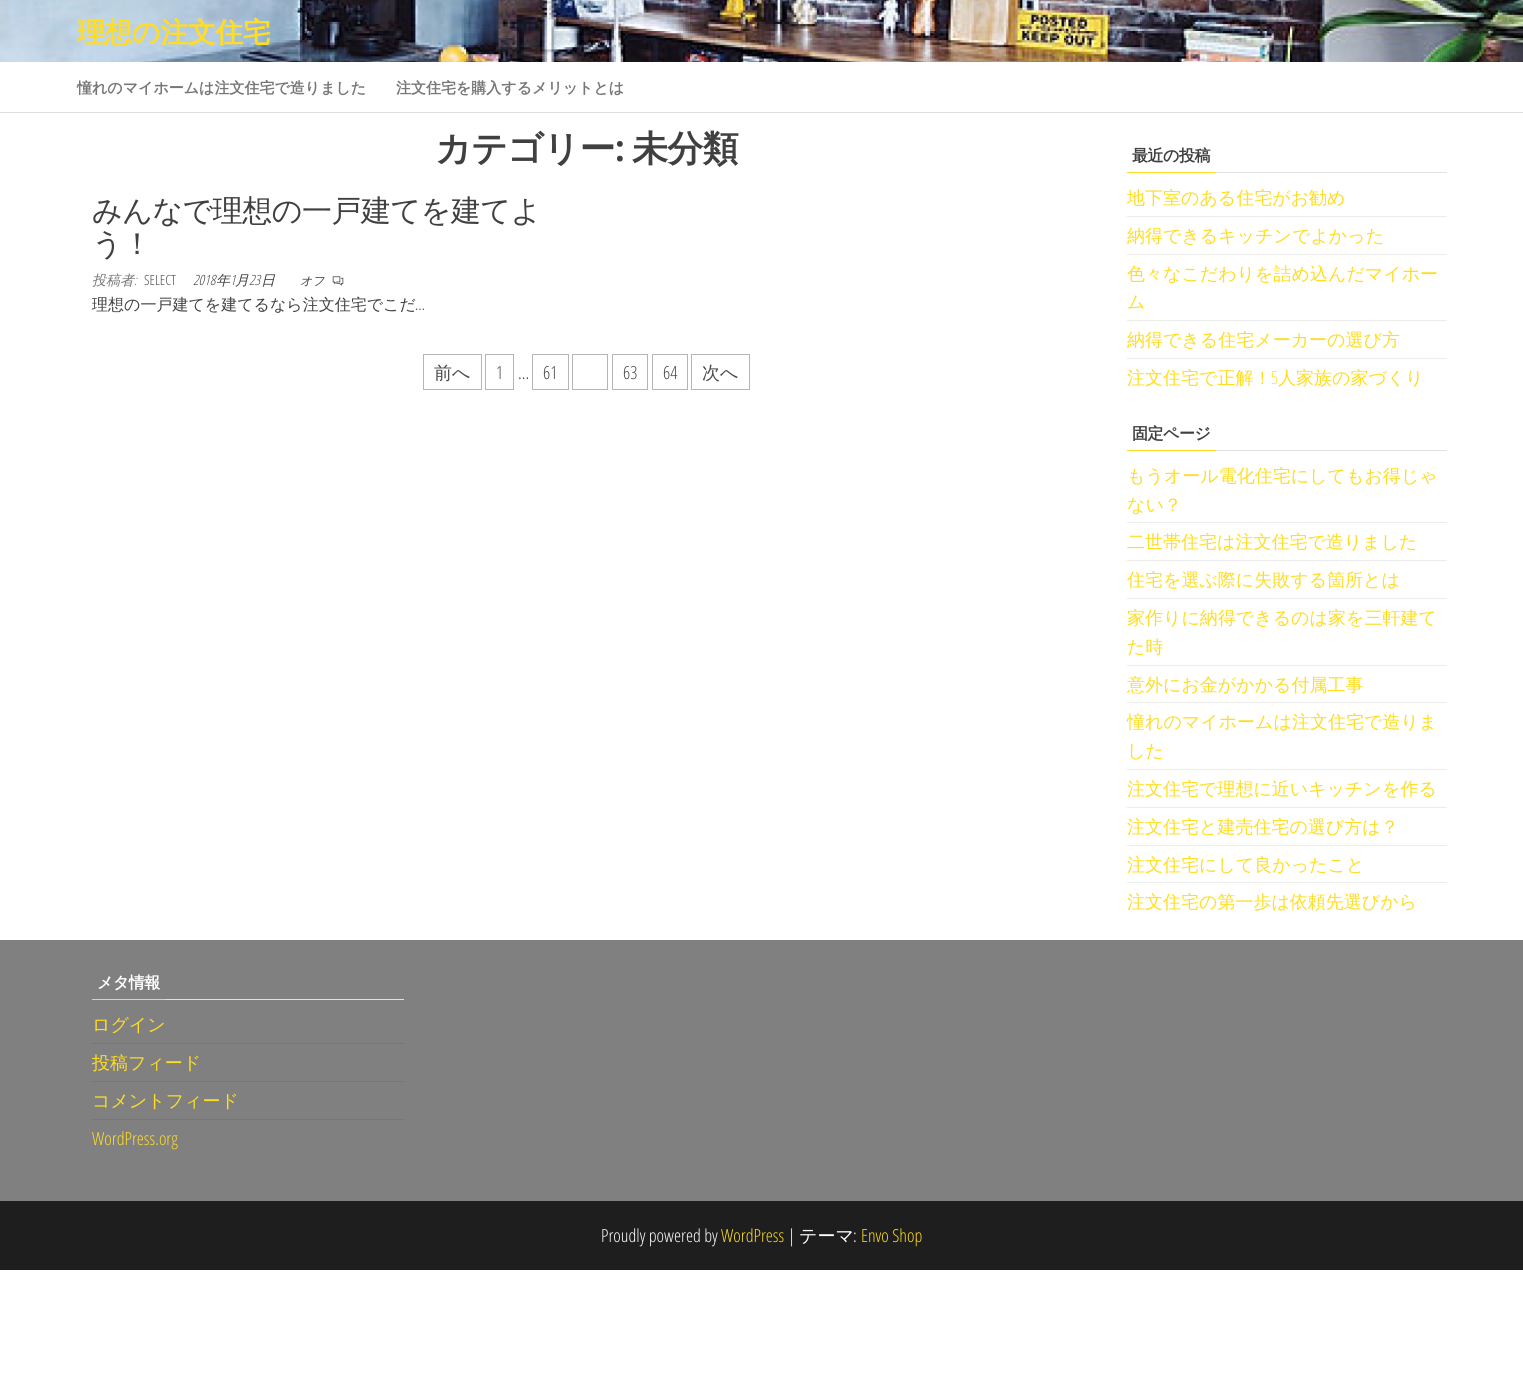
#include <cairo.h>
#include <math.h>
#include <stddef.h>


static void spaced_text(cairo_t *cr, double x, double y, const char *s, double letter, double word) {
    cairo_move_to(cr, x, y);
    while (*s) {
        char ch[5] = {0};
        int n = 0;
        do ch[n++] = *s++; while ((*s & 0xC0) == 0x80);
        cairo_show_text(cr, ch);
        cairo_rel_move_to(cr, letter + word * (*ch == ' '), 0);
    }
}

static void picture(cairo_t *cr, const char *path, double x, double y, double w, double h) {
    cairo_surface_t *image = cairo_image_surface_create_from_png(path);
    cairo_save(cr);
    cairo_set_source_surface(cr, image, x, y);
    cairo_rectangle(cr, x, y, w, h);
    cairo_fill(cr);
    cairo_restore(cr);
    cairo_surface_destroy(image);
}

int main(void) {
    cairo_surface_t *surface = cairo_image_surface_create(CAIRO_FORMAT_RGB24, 1523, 1376);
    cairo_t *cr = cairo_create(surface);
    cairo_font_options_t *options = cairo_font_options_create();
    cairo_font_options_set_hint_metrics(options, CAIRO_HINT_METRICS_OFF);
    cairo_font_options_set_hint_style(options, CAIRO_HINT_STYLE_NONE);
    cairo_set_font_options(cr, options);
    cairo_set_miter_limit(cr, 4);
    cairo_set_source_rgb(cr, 1, 1, 1);
    cairo_paint(cr);
    picture(cr, "img1.png", 0, 0, 1523, 62);
    cairo_select_font_face(cr, "WenQuanYi Zen Hei", CAIRO_FONT_SLANT_NORMAL, CAIRO_FONT_WEIGHT_BOLD);
    cairo_set_font_size(cr, 28);
    cairo_set_source_rgb(cr, 1, 0.867, 0.133);
    spaced_text(cr, 77, 42, "理想の注文住宅", -0.5, 0);
    cairo_set_source_rgb(cr, 0.867, 0.867, 0.867);
    cairo_rectangle(cr, 0, 112, 1523, 1);
    cairo_fill(cr);
    cairo_set_font_size(cr, 15);
    cairo_set_source_rgb(cr, 0.467, 0.467, 0.467);
    cairo_move_to(cr, 77, 93);
    cairo_show_text(cr, "憧れのマイホームは注文住宅で造りました");
    cairo_move_to(cr, 396, 93);
    cairo_show_text(cr, "注文住宅を購入するメリットとは");
    cairo_set_font_size(cr, 36);
    cairo_set_source_rgb(cr, 0.251, 0.251, 0.251);
    spaced_text(cr, 435, 161, "カテゴリー", -0.75, 0);
    cairo_select_font_face(cr, "Open Sans Condensed", CAIRO_FONT_SLANT_NORMAL, CAIRO_FONT_WEIGHT_BOLD);
    spaced_text(cr, 615, 161, ":", -0.75, 0);
    cairo_select_font_face(cr, "WenQuanYi Zen Hei", CAIRO_FONT_SLANT_NORMAL, CAIRO_FONT_WEIGHT_BOLD);
    spaced_text(cr, 632, 161, "未分類", -0.75, 0);
    cairo_select_font_face(cr, "WenQuanYi Zen Hei Medium", CAIRO_FONT_SLANT_NORMAL, CAIRO_FONT_WEIGHT_NORMAL);
    cairo_set_font_size(cr, 30);
    spaced_text(cr, 92, 221, "みんなで理想の一戸建てを建てよ", -0.5, 0);
    spaced_text(cr, 92, 254, "う！", -0.5, 0);
    cairo_select_font_face(cr, "WenQuanYi Zen Hei Medium", CAIRO_FONT_SLANT_ITALIC, CAIRO_FONT_WEIGHT_NORMAL);
    cairo_set_font_size(cr, 14);
    cairo_set_source_rgb(cr, 0.467, 0.467, 0.467);
    cairo_move_to(cr, 92, 285);
    cairo_show_text(cr, "投稿者");
    cairo_select_font_face(cr, "Open Sans Condensed Light", CAIRO_FONT_SLANT_ITALIC, CAIRO_FONT_WEIGHT_NORMAL);
    cairo_move_to(cr, 134, 285);
    cairo_show_text(cr, ":");
    cairo_select_font_face(cr, "Open Sans Condensed Light", CAIRO_FONT_SLANT_NORMAL, CAIRO_FONT_WEIGHT_NORMAL);
    cairo_set_source_rgb(cr, 0.282, 0.282, 0.282);
    cairo_move_to(cr, 144, 285);
    cairo_show_text(cr, "SELECT");
    cairo_select_font_face(cr, "Open Sans Condensed Light", CAIRO_FONT_SLANT_ITALIC, CAIRO_FONT_WEIGHT_NORMAL);
    cairo_set_source_rgb(cr, 0.251, 0.251, 0.251);
    cairo_move_to(cr, 193, 285);
    cairo_show_text(cr, "2018");
    cairo_select_font_face(cr, "WenQuanYi Zen Hei Medium", CAIRO_FONT_SLANT_ITALIC, CAIRO_FONT_WEIGHT_NORMAL);
    cairo_move_to(cr, 216, 285);
    cairo_show_text(cr, "年");
    cairo_select_font_face(cr, "Open Sans Condensed Light", CAIRO_FONT_SLANT_ITALIC, CAIRO_FONT_WEIGHT_NORMAL);
    cairo_move_to(cr, 230, 285);
    cairo_show_text(cr, "1");
    cairo_select_font_face(cr, "WenQuanYi Zen Hei Medium", CAIRO_FONT_SLANT_ITALIC, CAIRO_FONT_WEIGHT_NORMAL);
    cairo_move_to(cr, 235, 285);
    cairo_show_text(cr, "月");
    cairo_select_font_face(cr, "Open Sans Condensed Light", CAIRO_FONT_SLANT_ITALIC, CAIRO_FONT_WEIGHT_NORMAL);
    cairo_move_to(cr, 249, 285);
    cairo_show_text(cr, "23");
    cairo_select_font_face(cr, "WenQuanYi Zen Hei Medium", CAIRO_FONT_SLANT_ITALIC, CAIRO_FONT_WEIGHT_NORMAL);
    cairo_move_to(cr, 261, 285);
    cairo_show_text(cr, "日");
    cairo_set_font_size(cr, 12);
    cairo_move_to(cr, 300, 285);
    cairo_show_text(cr, "オフ");
    picture(cr, "img2.png", 332, 276, 12, 10);
    cairo_select_font_face(cr, "WenQuanYi Zen Hei Medium", CAIRO_FONT_SLANT_NORMAL, CAIRO_FONT_WEIGHT_NORMAL);
    cairo_set_font_size(cr, 16);
    cairo_move_to(cr, 92, 310);
    cairo_show_text(cr, "理想の一戸建てを建てるなら注文住宅でこだ");
    cairo_select_font_face(cr, "Open Sans Condensed Light", CAIRO_FONT_SLANT_NORMAL, CAIRO_FONT_WEIGHT_NORMAL);
    cairo_move_to(cr, 415, 310);
    cairo_show_text(cr, "…");
    cairo_rectangle(cr, 423.5, 354.5, 58, 35);
    cairo_set_source_rgb(cr, 0.71, 0.71, 0.71);
    cairo_set_line_width(cr, 1);
    cairo_stroke(cr);
    cairo_select_font_face(cr, "WenQuanYi Zen Hei Medium", CAIRO_FONT_SLANT_NORMAL, CAIRO_FONT_WEIGHT_NORMAL);
    cairo_set_font_size(cr, 18);
    cairo_set_source_rgb(cr, 0.282, 0.282, 0.282);
    cairo_move_to(cr, 434, 379);
    cairo_show_text(cr, "前へ");
    cairo_rectangle(cr, 485.5, 354.5, 28, 35);
    cairo_set_source_rgb(cr, 0.71, 0.71, 0.71);
    cairo_stroke(cr);
    cairo_select_font_face(cr, "Open Sans Condensed Light", CAIRO_FONT_SLANT_NORMAL, CAIRO_FONT_WEIGHT_NORMAL);
    cairo_set_source_rgb(cr, 0.282, 0.282, 0.282);
    cairo_move_to(cr, 496, 379);
    cairo_show_text(cr, "1");
    cairo_set_source_rgb(cr, 0.251, 0.251, 0.251);
    cairo_move_to(cr, 518, 379);
    cairo_show_text(cr, "…");
    cairo_rectangle(cr, 532.5, 354.5, 36, 35);
    cairo_set_source_rgb(cr, 0.71, 0.71, 0.71);
    cairo_stroke(cr);
    cairo_set_source_rgb(cr, 0.282, 0.282, 0.282);
    cairo_move_to(cr, 543, 379);
    cairo_show_text(cr, "61");
    cairo_rectangle(cr, 572.5, 354.5, 35, 35);
    cairo_set_source_rgb(cr, 0.71, 0.71, 0.71);
    cairo_stroke(cr);
    cairo_rectangle(cr, 612.5, 354.5, 35, 35);
    cairo_stroke(cr);
    cairo_set_source_rgb(cr, 0.282, 0.282, 0.282);
    cairo_move_to(cr, 623, 379);
    cairo_show_text(cr, "63");
    cairo_rectangle(cr, 652.5, 354.5, 35, 35);
    cairo_set_source_rgb(cr, 0.71, 0.71, 0.71);
    cairo_stroke(cr);
    cairo_set_source_rgb(cr, 0.282, 0.282, 0.282);
    cairo_move_to(cr, 663, 379);
    cairo_show_text(cr, "64");
    cairo_rectangle(cr, 691.5, 354.5, 58, 35);
    cairo_set_source_rgb(cr, 0.71, 0.71, 0.71);
    cairo_stroke(cr);
    cairo_select_font_face(cr, "WenQuanYi Zen Hei Medium", CAIRO_FONT_SLANT_NORMAL, CAIRO_FONT_WEIGHT_NORMAL);
    cairo_set_source_rgb(cr, 0.282, 0.282, 0.282);
    cairo_move_to(cr, 702, 379);
    cairo_show_text(cr, "次へ");
    cairo_set_source_rgb(cr, 0.886, 0.886, 0.886);
    cairo_rectangle(cr, 1215, 172, 232, 1);
    cairo_fill(cr);
    cairo_select_font_face(cr, "WenQuanYi Zen Hei", CAIRO_FONT_SLANT_NORMAL, CAIRO_FONT_WEIGHT_BOLD);
    cairo_set_font_size(cr, 16);
    cairo_set_source_rgb(cr, 0.251, 0.251, 0.251);
    spaced_text(cr, 1132, 161, "最近の投稿", -0.5, 0);
    cairo_set_source_rgb(cr, 1, 0.867, 0.133);
    cairo_rectangle(cr, 1127, 172, 88, 1);
    cairo_fill(cr);
    cairo_set_source_rgb(cr, 0.922, 0.922, 0.922);
    cairo_rectangle(cr, 1127, 216, 320, 1);
    cairo_fill(cr);
    cairo_select_font_face(cr, "WenQuanYi Zen Hei Medium", CAIRO_FONT_SLANT_NORMAL, CAIRO_FONT_WEIGHT_NORMAL);
    cairo_set_font_size(cr, 18);
    cairo_set_source_rgb(cr, 1, 0.867, 0.133);
    cairo_move_to(cr, 1127, 204);
    cairo_show_text(cr, "地下室のある住宅がお勧め");
    cairo_set_source_rgb(cr, 0.922, 0.922, 0.922);
    cairo_rectangle(cr, 1127, 254, 320, 1);
    cairo_fill(cr);
    cairo_set_source_rgb(cr, 1, 0.867, 0.133);
    cairo_move_to(cr, 1127, 242);
    cairo_show_text(cr, "納得できるキッチンでよかった");
    cairo_set_source_rgb(cr, 0.922, 0.922, 0.922);
    cairo_rectangle(cr, 1127, 320, 320, 1);
    cairo_fill(cr);
    cairo_set_source_rgb(cr, 1, 0.867, 0.133);
    cairo_move_to(cr, 1127, 280);
    cairo_show_text(cr, "色々なこだわりを詰め込んだマイホー");
    cairo_move_to(cr, 1127, 308);
    cairo_show_text(cr, "ム");
    cairo_set_source_rgb(cr, 0.922, 0.922, 0.922);
    cairo_rectangle(cr, 1127, 358, 320, 1);
    cairo_fill(cr);
    cairo_set_source_rgb(cr, 1, 0.867, 0.133);
    cairo_move_to(cr, 1127, 346);
    cairo_show_text(cr, "納得できる住宅メーカーの選び方");
    cairo_move_to(cr, 1127, 384);
    cairo_show_text(cr, "注文住宅で正解！");
    cairo_select_font_face(cr, "Open Sans Condensed Light", CAIRO_FONT_SLANT_NORMAL, CAIRO_FONT_WEIGHT_NORMAL);
    cairo_move_to(cr, 1271, 384);
    cairo_show_text(cr, "5");
    cairo_select_font_face(cr, "WenQuanYi Zen Hei Medium", CAIRO_FONT_SLANT_NORMAL, CAIRO_FONT_WEIGHT_NORMAL);
    cairo_move_to(cr, 1278, 384);
    cairo_show_text(cr, "人家族の家づくり");
    cairo_set_source_rgb(cr, 0.886, 0.886, 0.886);
    cairo_rectangle(cr, 1216, 450, 231, 1);
    cairo_fill(cr);
    cairo_select_font_face(cr, "WenQuanYi Zen Hei", CAIRO_FONT_SLANT_NORMAL, CAIRO_FONT_WEIGHT_BOLD);
    cairo_set_font_size(cr, 16);
    cairo_set_source_rgb(cr, 0.251, 0.251, 0.251);
    spaced_text(cr, 1132, 439, "固定ページ", -0.5, 0);
    cairo_set_source_rgb(cr, 1, 0.867, 0.133);
    cairo_rectangle(cr, 1127, 450, 89, 1);
    cairo_fill(cr);
    cairo_set_source_rgb(cr, 0.922, 0.922, 0.922);
    cairo_rectangle(cr, 1127, 522, 320, 1);
    cairo_fill(cr);
    cairo_select_font_face(cr, "WenQuanYi Zen Hei Medium", CAIRO_FONT_SLANT_NORMAL, CAIRO_FONT_WEIGHT_NORMAL);
    cairo_set_font_size(cr, 18);
    cairo_set_source_rgb(cr, 1, 0.867, 0.133);
    cairo_move_to(cr, 1127, 482);
    cairo_show_text(cr, "もうオール電化住宅にしてもお得じゃ");
    cairo_move_to(cr, 1127, 511);
    cairo_show_text(cr, "ない？");
    cairo_set_source_rgb(cr, 0.922, 0.922, 0.922);
    cairo_rectangle(cr, 1127, 560, 320, 1);
    cairo_fill(cr);
    cairo_set_source_rgb(cr, 1, 0.867, 0.133);
    cairo_move_to(cr, 1127, 548);
    cairo_show_text(cr, "二世帯住宅は注文住宅で造りました");
    cairo_set_source_rgb(cr, 0.922, 0.922, 0.922);
    cairo_rectangle(cr, 1127, 598, 320, 1);
    cairo_fill(cr);
    cairo_set_source_rgb(cr, 1, 0.867, 0.133);
    cairo_move_to(cr, 1127, 586);
    cairo_show_text(cr, "住宅を選ぶ際に失敗する箇所とは");
    cairo_set_source_rgb(cr, 0.922, 0.922, 0.922);
    cairo_rectangle(cr, 1127, 665, 320, 1);
    cairo_fill(cr);
    cairo_set_source_rgb(cr, 1, 0.867, 0.133);
    cairo_move_to(cr, 1127, 624);
    cairo_show_text(cr, "家作りに納得できるのは家を三軒建て");
    cairo_move_to(cr, 1127, 653);
    cairo_show_text(cr, "た時");
    cairo_set_source_rgb(cr, 0.922, 0.922, 0.922);
    cairo_rectangle(cr, 1127, 702, 320, 1);
    cairo_fill(cr);
    cairo_set_source_rgb(cr, 1, 0.867, 0.133);
    cairo_move_to(cr, 1127, 691);
    cairo_show_text(cr, "意外にお金がかかる付属工事");
    cairo_set_source_rgb(cr, 0.922, 0.922, 0.922);
    cairo_rectangle(cr, 1127, 769, 320, 1);
    cairo_fill(cr);
    cairo_set_source_rgb(cr, 1, 0.867, 0.133);
    cairo_move_to(cr, 1127, 728);
    cairo_show_text(cr, "憧れのマイホームは注文住宅で造りま");
    cairo_move_to(cr, 1127, 757);
    cairo_show_text(cr, "した");
    cairo_set_source_rgb(cr, 0.922, 0.922, 0.922);
    cairo_rectangle(cr, 1127, 807, 320, 1);
    cairo_fill(cr);
    cairo_set_source_rgb(cr, 1, 0.867, 0.133);
    cairo_move_to(cr, 1127, 795);
    cairo_show_text(cr, "注文住宅で理想に近いキッチンを作る");
    cairo_set_source_rgb(cr, 0.922, 0.922, 0.922);
    cairo_rectangle(cr, 1127, 845, 320, 1);
    cairo_fill(cr);
    cairo_set_source_rgb(cr, 1, 0.867, 0.133);
    cairo_move_to(cr, 1127, 833);
    cairo_show_text(cr, "注文住宅と建売住宅の選び方は？");
    cairo_set_source_rgb(cr, 0.922, 0.922, 0.922);
    cairo_rectangle(cr, 1127, 882, 320, 1);
    cairo_fill(cr);
    cairo_set_source_rgb(cr, 1, 0.867, 0.133);
    cairo_move_to(cr, 1127, 871);
    cairo_show_text(cr, "注文住宅にして良かったこと");
    cairo_move_to(cr, 1127, 908);
    cairo_show_text(cr, "注文住宅の第一歩は依頼先選びから");
    cairo_set_source_rgb(cr, 0.502, 0.502, 0.502);
    cairo_rectangle(cr, 0, 940, 1523, 261);
    cairo_fill(cr);
    cairo_set_source_rgb(cr, 0.886, 0.886, 0.886);
    cairo_rectangle(cr, 165, 999, 239, 1);
    cairo_fill(cr);
    cairo_select_font_face(cr, "WenQuanYi Zen Hei", CAIRO_FONT_SLANT_NORMAL, CAIRO_FONT_WEIGHT_BOLD);
    cairo_set_font_size(cr, 16);
    cairo_set_source_rgb(cr, 1, 1, 1);
    spaced_text(cr, 97, 988, "メタ情報", -0.5, 0);
    cairo_set_source_rgb(cr, 1, 0.867, 0.133);
    cairo_rectangle(cr, 92, 999, 73, 1);
    cairo_fill(cr);
    cairo_set_source_rgb(cr, 0.463, 0.463, 0.463);
    cairo_rectangle(cr, 92, 1043, 312, 1);
    cairo_fill(cr);
    cairo_select_font_face(cr, "WenQuanYi Zen Hei Medium", CAIRO_FONT_SLANT_NORMAL, CAIRO_FONT_WEIGHT_NORMAL);
    cairo_set_font_size(cr, 18);
    cairo_set_source_rgb(cr, 1, 0.867, 0.133);
    cairo_move_to(cr, 92, 1031);
    cairo_show_text(cr, "ログイン");
    cairo_set_source_rgb(cr, 0.463, 0.463, 0.463);
    cairo_rectangle(cr, 92, 1081, 312, 1);
    cairo_fill(cr);
    cairo_set_source_rgb(cr, 1, 0.867, 0.133);
    cairo_move_to(cr, 92, 1069);
    cairo_show_text(cr, "投稿フィード");
    cairo_set_source_rgb(cr, 0.463, 0.463, 0.463);
    cairo_rectangle(cr, 92, 1119, 312, 1);
    cairo_fill(cr);
    cairo_set_source_rgb(cr, 1, 0.867, 0.133);
    cairo_move_to(cr, 92, 1107);
    cairo_show_text(cr, "コメントフィード");
    cairo_select_font_face(cr, "Open Sans Condensed Light", CAIRO_FONT_SLANT_NORMAL, CAIRO_FONT_WEIGHT_NORMAL);
    cairo_move_to(cr, 92, 1145);
    cairo_show_text(cr, "WordPress.org");
    cairo_set_source_rgb(cr, 0.118, 0.118, 0.118);
    cairo_rectangle(cr, 0, 1201, 1523, 69);
    cairo_fill(cr);
    cairo_set_source_rgb(cr, 1, 1, 1);
    cairo_move_to(cr, 601, 1242);
    cairo_show_text(cr, "Proudly powered by");
    cairo_set_source_rgb(cr, 1, 0.867, 0.133);
    cairo_move_to(cr, 721, 1242);
    cairo_show_text(cr, "WordPress");
    cairo_set_source_rgb(cr, 1, 1, 1);
    cairo_move_to(cr, 788, 1242);
    cairo_show_text(cr, "|");
    cairo_select_font_face(cr, "WenQuanYi Zen Hei Medium", CAIRO_FONT_SLANT_NORMAL, CAIRO_FONT_WEIGHT_NORMAL);
    cairo_move_to(cr, 799, 1242);
    cairo_show_text(cr, "テーマ");
    cairo_select_font_face(cr, "Open Sans Condensed Light", CAIRO_FONT_SLANT_NORMAL, CAIRO_FONT_WEIGHT_NORMAL);
    cairo_move_to(cr, 853, 1242);
    cairo_show_text(cr, ":");
    cairo_set_source_rgb(cr, 1, 0.867, 0.133);
    cairo_move_to(cr, 861, 1242);
    cairo_show_text(cr, "Envo Shop");
    cairo_surface_write_to_png(surface, "page.png");
    cairo_font_options_destroy(options);
    cairo_destroy(cr);
    cairo_surface_destroy(surface);
    return 0;
}
